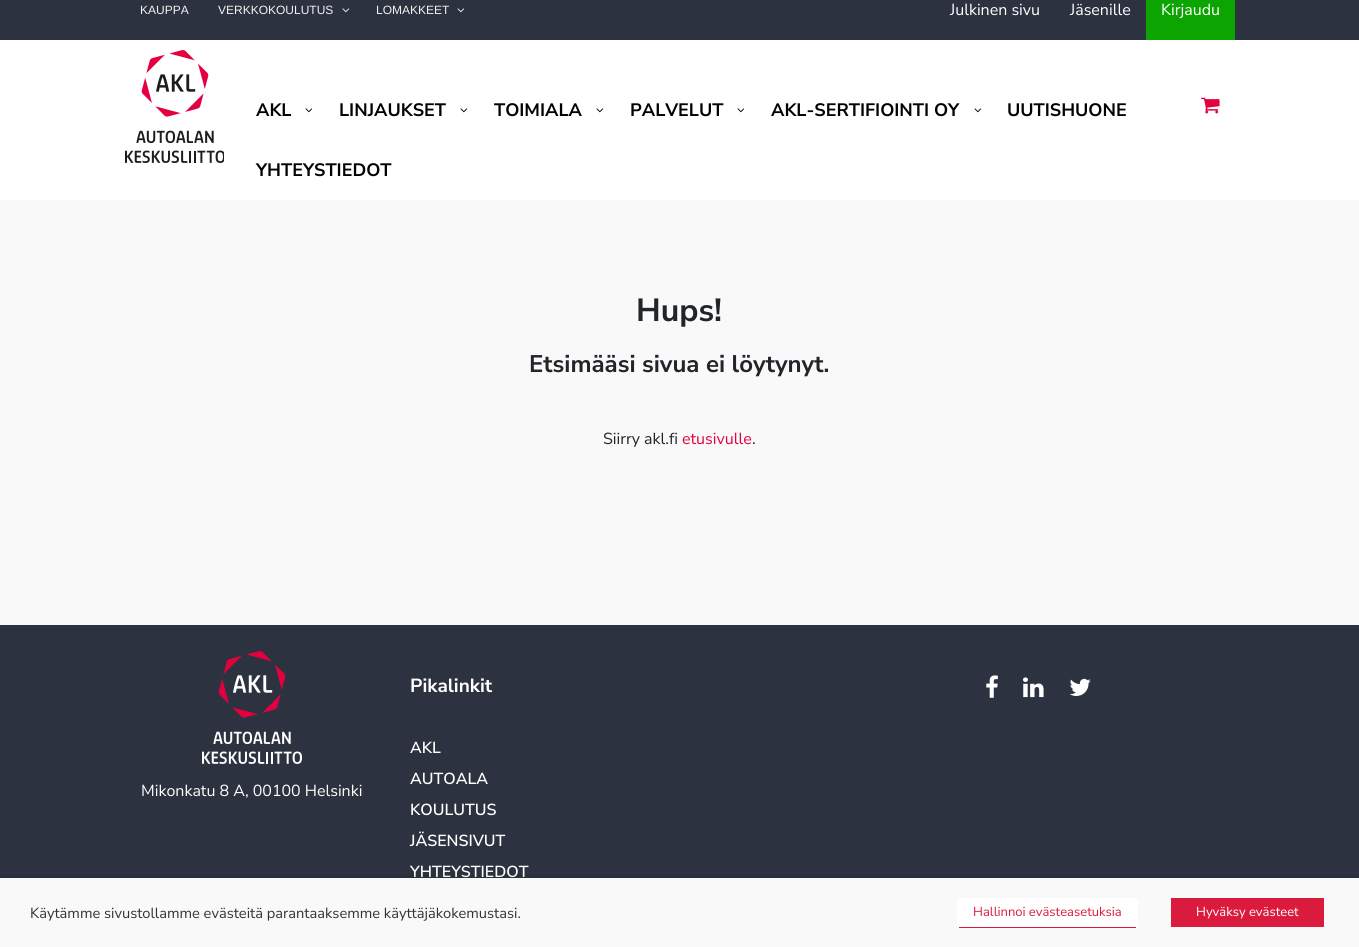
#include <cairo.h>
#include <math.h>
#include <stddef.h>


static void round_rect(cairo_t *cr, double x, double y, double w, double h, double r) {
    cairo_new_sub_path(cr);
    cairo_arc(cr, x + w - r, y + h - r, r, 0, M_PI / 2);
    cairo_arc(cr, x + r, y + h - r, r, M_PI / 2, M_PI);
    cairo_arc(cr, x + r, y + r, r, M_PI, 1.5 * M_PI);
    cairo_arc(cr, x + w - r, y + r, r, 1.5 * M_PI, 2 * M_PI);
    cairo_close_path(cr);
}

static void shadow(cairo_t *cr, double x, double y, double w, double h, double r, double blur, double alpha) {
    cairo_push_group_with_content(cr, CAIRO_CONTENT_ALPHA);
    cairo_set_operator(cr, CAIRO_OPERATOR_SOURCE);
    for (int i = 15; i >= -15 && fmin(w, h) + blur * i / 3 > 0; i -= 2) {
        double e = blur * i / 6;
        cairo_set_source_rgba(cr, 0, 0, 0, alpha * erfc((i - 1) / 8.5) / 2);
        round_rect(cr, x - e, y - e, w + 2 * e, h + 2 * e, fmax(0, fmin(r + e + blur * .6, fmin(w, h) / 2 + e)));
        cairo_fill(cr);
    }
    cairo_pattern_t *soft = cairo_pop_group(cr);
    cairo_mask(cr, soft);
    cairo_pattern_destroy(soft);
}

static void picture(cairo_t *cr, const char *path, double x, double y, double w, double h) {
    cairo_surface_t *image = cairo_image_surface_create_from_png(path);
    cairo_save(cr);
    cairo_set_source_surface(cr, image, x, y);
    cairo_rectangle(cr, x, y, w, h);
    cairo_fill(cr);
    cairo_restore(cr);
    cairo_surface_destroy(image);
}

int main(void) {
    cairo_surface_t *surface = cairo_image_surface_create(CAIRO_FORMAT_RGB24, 1359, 947);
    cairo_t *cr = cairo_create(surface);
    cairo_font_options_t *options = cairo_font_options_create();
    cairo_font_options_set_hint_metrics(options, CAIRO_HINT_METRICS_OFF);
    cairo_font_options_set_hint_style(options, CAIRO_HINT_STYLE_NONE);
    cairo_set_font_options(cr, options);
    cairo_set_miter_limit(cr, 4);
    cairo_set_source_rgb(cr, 0.973, 0.973, 0.973);
    cairo_paint(cr);
    cairo_set_source_rgb(cr, 0.173, 0.196, 0.247);
    cairo_rectangle(cr, 0, 0, 1359, 40);
    cairo_fill(cr);
    cairo_select_font_face(cr, "Liberation Sans", CAIRO_FONT_SLANT_NORMAL, CAIRO_FONT_WEIGHT_NORMAL);
    cairo_set_font_size(cr, 12);
    cairo_set_source_rgb(cr, 0.945, 0.945, 0.945);
    cairo_move_to(cr, 140, 14);
    cairo_show_text(cr, "KAUPPA");
    cairo_move_to(cr, 218, 14);
    cairo_show_text(cr, "VERKKOKOULUTUS");
    picture(cr, "img1.png", 342, 8, 8, 5);
    cairo_move_to(cr, 376, 14);
    cairo_show_text(cr, "LOMAKKEET");
    picture(cr, "img1.png", 457, 8, 8, 5);
    cairo_select_font_face(cr, "Nunito Sans", CAIRO_FONT_SLANT_NORMAL, CAIRO_FONT_WEIGHT_NORMAL);
    cairo_set_font_size(cr, 16);
    cairo_set_source_rgb(cr, 1, 1, 1);
    cairo_move_to(cr, 950, 15);
    cairo_show_text(cr, "Julkinen sivu");
    cairo_move_to(cr, 1070, 15);
    cairo_show_text(cr, "Jäsenille");
    cairo_set_source_rgb(cr, 0.047, 0.643, 0.004);
    cairo_rectangle(cr, 1146, 0, 89, 40);
    cairo_fill(cr);
    cairo_set_source_rgb(cr, 1, 1, 1);
    cairo_move_to(cr, 1161, 15);
    cairo_show_text(cr, "Kirjaudu");
    cairo_rectangle(cr, 0, 40, 1359, 160);
    cairo_fill(cr);
    picture(cr, "img2.png", 125, 50, 99, 113);
    cairo_select_font_face(cr, "Nunito Sans", CAIRO_FONT_SLANT_NORMAL, CAIRO_FONT_WEIGHT_BOLD);
    cairo_set_font_size(cr, 18);
    cairo_set_source_rgb(cr, 0.008, 0.008, 0.008);
    cairo_move_to(cr, 256, 116);
    cairo_show_text(cr, "AKL");
    picture(cr, "img3.png", 305, 108, 8, 5);
    cairo_move_to(cr, 339, 116);
    cairo_show_text(cr, "LINJAUKSET");
    picture(cr, "img3.png", 460, 108, 8, 5);
    cairo_move_to(cr, 494, 116);
    cairo_show_text(cr, "TOIMIALA");
    picture(cr, "img3.png", 596, 108, 8, 5);
    cairo_move_to(cr, 630, 116);
    cairo_show_text(cr, "PALVELUT");
    picture(cr, "img3.png", 737, 108, 8, 5);
    cairo_move_to(cr, 771, 116);
    cairo_show_text(cr, "AKL-SERTIFIOINTI OY");
    picture(cr, "img3.png", 974, 108, 8, 5);
    cairo_move_to(cr, 1007, 116);
    cairo_show_text(cr, "UUTISHUONE");
    cairo_move_to(cr, 256, 176);
    cairo_show_text(cr, "YHTEYSTIEDOT");
    picture(cr, "img4.png", 1201, 97, 19, 17);
    cairo_set_font_size(cr, 32);
    cairo_set_source_rgb(cr, 0.129, 0.145, 0.161);
    cairo_move_to(cr, 636, 321);
    cairo_show_text(cr, "Hups!");
    cairo_set_font_size(cr, 24);
    cairo_move_to(cr, 529, 372);
    cairo_show_text(cr, "Etsimääsi sivua ei löytynyt.");
    cairo_select_font_face(cr, "Nunito Sans", CAIRO_FONT_SLANT_NORMAL, CAIRO_FONT_WEIGHT_NORMAL);
    cairo_set_font_size(cr, 16);
    cairo_move_to(cr, 603, 444);
    cairo_show_text(cr, "Siirry akl.fi");
    cairo_set_source_rgb(cr, 0.894, 0, 0.243);
    cairo_move_to(cr, 682, 444);
    cairo_show_text(cr, "etusivulle");
    cairo_set_source_rgb(cr, 0.129, 0.145, 0.161);
    cairo_move_to(cr, 752, 444);
    cairo_show_text(cr, ".");
    cairo_set_source_rgb(cr, 0.173, 0.196, 0.247);
    cairo_rectangle(cr, 0, 625, 1359, 253);
    cairo_fill(cr);
    picture(cr, "img5.png", 202, 651, 100, 113);
    cairo_set_source_rgb(cr, 1, 1, 1);
    cairo_move_to(cr, 141, 796);
    cairo_show_text(cr, "Mikonkatu 8 A, 00100 Helsinki");
    cairo_select_font_face(cr, "Nunito Sans", CAIRO_FONT_SLANT_NORMAL, CAIRO_FONT_WEIGHT_BOLD);
    cairo_set_font_size(cr, 19);
    cairo_move_to(cr, 410, 692);
    cairo_show_text(cr, "Pikalinkit");
    cairo_select_font_face(cr, "Nunito Sans SemiBold", CAIRO_FONT_SLANT_NORMAL, CAIRO_FONT_WEIGHT_NORMAL);
    cairo_set_font_size(cr, 16);
    cairo_move_to(cr, 410, 753);
    cairo_show_text(cr, "AKL");
    cairo_move_to(cr, 410, 784);
    cairo_show_text(cr, "AUTOALA");
    cairo_move_to(cr, 410, 815);
    cairo_show_text(cr, "KOULUTUS");
    cairo_move_to(cr, 410, 846);
    cairo_show_text(cr, "JÄSENSIVUT");
    cairo_move_to(cr, 410, 877);
    cairo_show_text(cr, "YHTEYSTIEDOT");
    picture(cr, "img6.png", 986, 675, 12, 23);
    picture(cr, "img7.png", 1023, 677, 21, 21);
    picture(cr, "img8.png", 1069, 678, 22, 18);
    cairo_save(cr);
    cairo_rectangle(cr, 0, 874, 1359, 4);
    cairo_clip(cr);
    cairo_set_source_rgb(cr, 0, 0, 0);
    shadow(cr, 0, 883, 1359, 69, 0, 5, 0.5);
    cairo_restore(cr);
    cairo_select_font_face(cr, "Nunito Sans", CAIRO_FONT_SLANT_NORMAL, CAIRO_FONT_WEIGHT_NORMAL);
    cairo_set_font_size(cr, 14.65);
    cairo_set_source_rgb(cr, 0.2, 0.2, 0.2);
    cairo_move_to(cr, 30, 918);
    cairo_show_text(cr, "Käytämme sivustollamme evästeitä parantaaksemme käyttäjäkokemustasi.");
    cairo_set_source_rgb(cr, 1, 1, 1);
    round_rect(cr, 957, 898, 181, 30, 4);
    cairo_fill(cr);
    cairo_set_source_rgb(cr, 0.859, 0.106, 0.239);
    cairo_rectangle(cr, 959, 927, 177, 1);
    cairo_fill(cr);
    cairo_set_font_size(cr, 13);
    cairo_move_to(cr, 973, 916);
    cairo_show_text(cr, "Hallinnoi evästeasetuksia");
    cairo_rectangle(cr, 1171, 898, 153, 29);
    cairo_fill(cr);
    cairo_set_source_rgb(cr, 1, 1, 1);
    cairo_move_to(cr, 1196, 916);
    cairo_show_text(cr, "Hyväksy evästeet");
    cairo_surface_write_to_png(surface, "page.png");
    cairo_font_options_destroy(options);
    cairo_destroy(cr);
    cairo_surface_destroy(surface);
    return 0;
}
